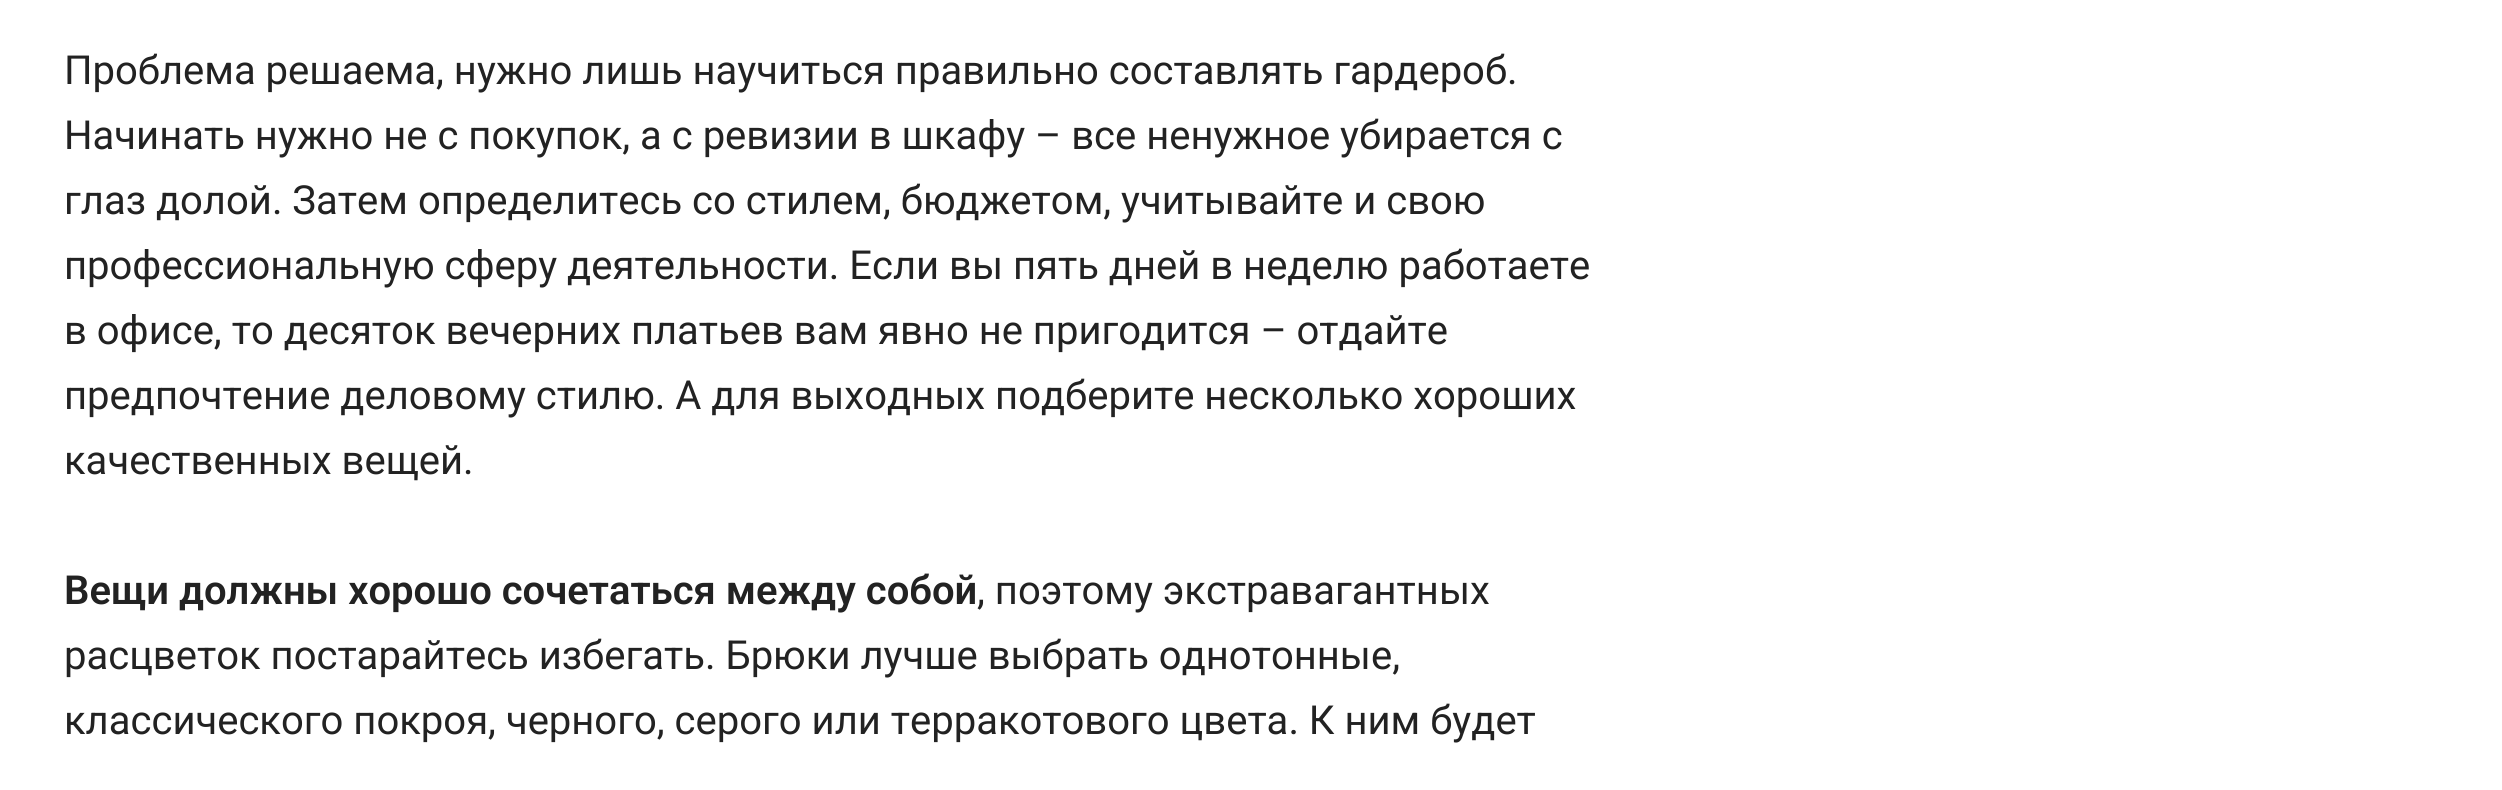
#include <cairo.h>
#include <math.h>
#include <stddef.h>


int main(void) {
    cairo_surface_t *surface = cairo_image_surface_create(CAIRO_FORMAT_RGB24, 2502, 790);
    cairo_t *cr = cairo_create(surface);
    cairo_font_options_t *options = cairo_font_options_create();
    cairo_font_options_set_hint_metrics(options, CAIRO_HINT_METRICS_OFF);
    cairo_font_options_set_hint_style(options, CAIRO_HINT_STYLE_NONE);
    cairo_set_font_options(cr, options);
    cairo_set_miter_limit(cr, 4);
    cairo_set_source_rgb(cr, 1, 1, 1);
    cairo_paint(cr);
    cairo_select_font_face(cr, "Roboto", CAIRO_FONT_SLANT_NORMAL, CAIRO_FONT_WEIGHT_NORMAL);
    cairo_set_font_size(cr, 40);
    cairo_set_source_rgb(cr, 0.133, 0.133, 0.133);
    cairo_move_to(cr, 64, 84);
    cairo_show_text(cr, "Проблема решаема, нужно лишь научиться правильно составлять гардероб.");
    cairo_move_to(cr, 64, 149);
    cairo_show_text(cr, "Начинать нужно не с покупок, а с ревизии в шкафу – все ненужное убирается с");
    cairo_move_to(cr, 64, 214);
    cairo_show_text(cr, "глаз долой. Затем определитесь со стилем, бюджетом, учитывайте и свою");
    cairo_move_to(cr, 64, 279);
    cairo_show_text(cr, "профессиональную сферу деятельности. Если вы пять дней в неделю работаете");
    cairo_move_to(cr, 64, 344);
    cairo_show_text(cr, "в офисе, то десяток вечерних платьев вам явно не пригодится – отдайте");
    cairo_move_to(cr, 64, 409);
    cairo_show_text(cr, "предпочтение деловому стилю. А для выходных подберите несколько хороших");
    cairo_move_to(cr, 64, 474);
    cairo_show_text(cr, "качественных вещей.");
    cairo_select_font_face(cr, "Roboto SemiBold", CAIRO_FONT_SLANT_NORMAL, CAIRO_FONT_WEIGHT_NORMAL);
    cairo_move_to(cr, 64, 604);
    cairo_show_text(cr, "Вещи должны хорошо сочетаться между собой");
    cairo_select_font_face(cr, "Roboto", CAIRO_FONT_SLANT_NORMAL, CAIRO_FONT_WEIGHT_NORMAL);
    cairo_move_to(cr, 977, 604);
    cairo_show_text(cr, ", поэтому экстравагантных");
    cairo_move_to(cr, 64, 669);
    cairo_show_text(cr, "расцветок постарайтесь избегать. Брюки лучше выбрать однотонные,");
    cairo_move_to(cr, 64, 734);
    cairo_show_text(cr, "классического покроя, черного, серого или терракотового цвета. К ним будет");
    cairo_surface_write_to_png(surface, "page.png");
    cairo_font_options_destroy(options);
    cairo_destroy(cr);
    cairo_surface_destroy(surface);
    return 0;
}
